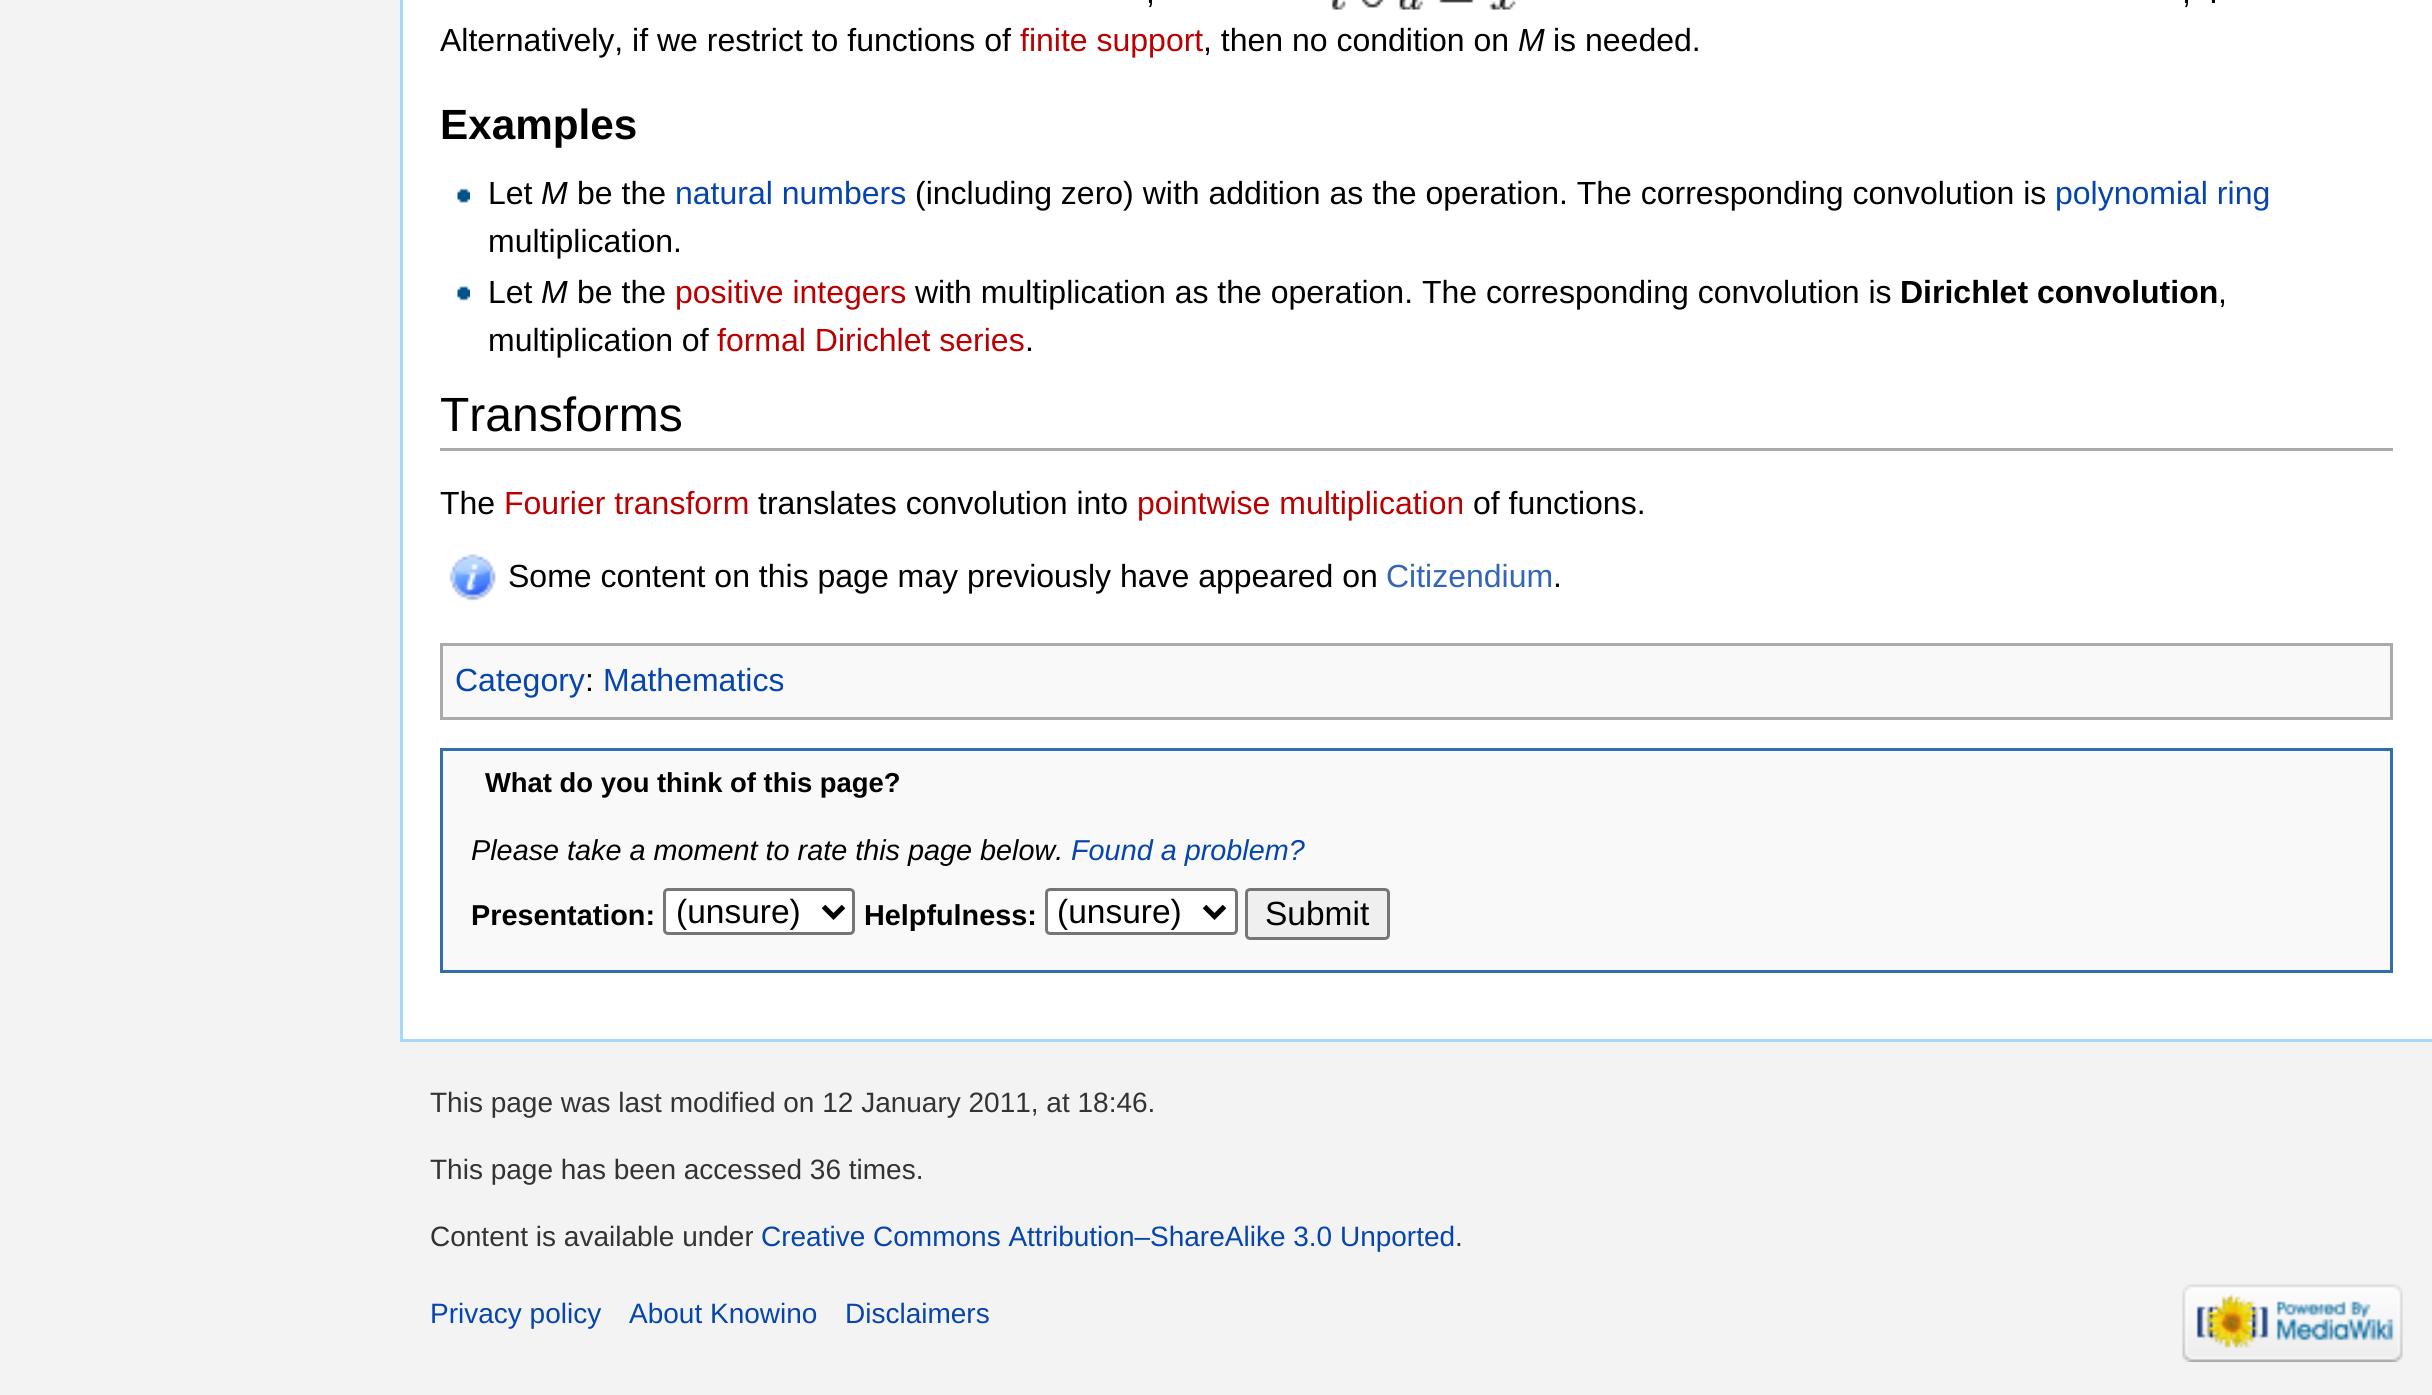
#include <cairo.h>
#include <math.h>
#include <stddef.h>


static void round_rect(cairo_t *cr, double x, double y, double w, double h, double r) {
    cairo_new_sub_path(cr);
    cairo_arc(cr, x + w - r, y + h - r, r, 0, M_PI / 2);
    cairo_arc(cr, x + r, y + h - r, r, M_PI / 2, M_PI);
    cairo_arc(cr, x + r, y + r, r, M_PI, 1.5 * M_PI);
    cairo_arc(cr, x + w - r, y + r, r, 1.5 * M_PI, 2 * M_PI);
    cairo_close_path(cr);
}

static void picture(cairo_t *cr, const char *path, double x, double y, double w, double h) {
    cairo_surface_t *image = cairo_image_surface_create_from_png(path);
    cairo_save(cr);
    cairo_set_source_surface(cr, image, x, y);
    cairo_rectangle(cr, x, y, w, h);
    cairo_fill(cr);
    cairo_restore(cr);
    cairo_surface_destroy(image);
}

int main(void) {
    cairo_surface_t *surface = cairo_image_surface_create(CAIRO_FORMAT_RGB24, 2432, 1395);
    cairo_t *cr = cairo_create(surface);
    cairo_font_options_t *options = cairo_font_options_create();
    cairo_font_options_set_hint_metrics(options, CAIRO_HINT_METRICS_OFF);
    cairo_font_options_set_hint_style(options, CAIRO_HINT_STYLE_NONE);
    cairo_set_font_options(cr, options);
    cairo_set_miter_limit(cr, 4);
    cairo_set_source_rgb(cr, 0.953, 0.953, 0.953);
    cairo_paint(cr);
    cairo_set_source_rgb(cr, 1, 1, 1);
    cairo_rectangle(cr, 403, 0, 2029, 1039);
    cairo_fill(cr);
    cairo_set_source_rgb(cr, 0.655, 0.843, 0.976);
    cairo_rectangle(cr, 400, 0, 3, 1040);
    cairo_fill(cr);
    cairo_select_font_face(cr, "Liberation Sans", CAIRO_FONT_SLANT_NORMAL, CAIRO_FONT_WEIGHT_NORMAL);
    cairo_set_font_size(cr, 32);
    cairo_set_source_rgb(cr, 0, 0, 0);
    cairo_move_to(cr, 1146, 3);
    cairo_show_text(cr, ",");
    picture(cr, "img1.png", 1331, 0, 185, 10);
    cairo_move_to(cr, 2182, 3);
    cairo_show_text(cr, ",");
    cairo_move_to(cr, 2209, 3);
    cairo_show_text(cr, ".");
    cairo_move_to(cr, 440, 51);
    cairo_show_text(cr, "Alternatively, if we restrict to functions of");
    cairo_set_source_rgb(cr, 0.729, 0, 0);
    cairo_move_to(cr, 1020, 51);
    cairo_show_text(cr, "finite support");
    cairo_set_source_rgb(cr, 0, 0, 0);
    cairo_move_to(cr, 1203, 51);
    cairo_show_text(cr, ", then no condition on");
    cairo_select_font_face(cr, "Liberation Sans", CAIRO_FONT_SLANT_ITALIC, CAIRO_FONT_WEIGHT_NORMAL);
    cairo_move_to(cr, 1518, 51);
    cairo_show_text(cr, "M");
    cairo_select_font_face(cr, "Liberation Sans", CAIRO_FONT_SLANT_NORMAL, CAIRO_FONT_WEIGHT_NORMAL);
    cairo_move_to(cr, 1553, 51);
    cairo_show_text(cr, "is needed.");
    cairo_select_font_face(cr, "Liberation Sans", CAIRO_FONT_SLANT_NORMAL, CAIRO_FONT_WEIGHT_BOLD);
    cairo_set_font_size(cr, 42.25);
    cairo_move_to(cr, 440, 139);
    cairo_show_text(cr, "Examples");
    picture(cr, "img2.png", 457, 188, 13, 15);
    cairo_select_font_face(cr, "Liberation Sans", CAIRO_FONT_SLANT_NORMAL, CAIRO_FONT_WEIGHT_NORMAL);
    cairo_set_font_size(cr, 32);
    cairo_move_to(cr, 488, 204);
    cairo_show_text(cr, "Let");
    cairo_select_font_face(cr, "Liberation Sans", CAIRO_FONT_SLANT_ITALIC, CAIRO_FONT_WEIGHT_NORMAL);
    cairo_move_to(cr, 541, 204);
    cairo_show_text(cr, "M");
    cairo_select_font_face(cr, "Liberation Sans", CAIRO_FONT_SLANT_NORMAL, CAIRO_FONT_WEIGHT_NORMAL);
    cairo_move_to(cr, 577, 204);
    cairo_show_text(cr, "be the");
    cairo_set_source_rgb(cr, 0.024, 0.271, 0.678);
    cairo_move_to(cr, 675, 204);
    cairo_show_text(cr, "natural numbers");
    cairo_set_source_rgb(cr, 0, 0, 0);
    cairo_move_to(cr, 915, 204);
    cairo_show_text(cr, "(including zero) with addition as the operation. The corresponding convolution is");
    cairo_set_source_rgb(cr, 0.024, 0.271, 0.678);
    cairo_move_to(cr, 2055, 204);
    cairo_show_text(cr, "polynomial ring");
    cairo_set_source_rgb(cr, 0, 0, 0);
    cairo_move_to(cr, 488, 252);
    cairo_show_text(cr, "multiplication.");
    picture(cr, "img3.png", 457, 286, 13, 15);
    cairo_move_to(cr, 488, 303);
    cairo_show_text(cr, "Let");
    cairo_select_font_face(cr, "Liberation Sans", CAIRO_FONT_SLANT_ITALIC, CAIRO_FONT_WEIGHT_NORMAL);
    cairo_move_to(cr, 541, 303);
    cairo_show_text(cr, "M");
    cairo_select_font_face(cr, "Liberation Sans", CAIRO_FONT_SLANT_NORMAL, CAIRO_FONT_WEIGHT_NORMAL);
    cairo_move_to(cr, 577, 303);
    cairo_show_text(cr, "be the");
    cairo_set_source_rgb(cr, 0.729, 0, 0);
    cairo_move_to(cr, 675, 303);
    cairo_show_text(cr, "positive integers");
    cairo_set_source_rgb(cr, 0, 0, 0);
    cairo_move_to(cr, 915, 303);
    cairo_show_text(cr, "with multiplication as the operation. The corresponding convolution is");
    cairo_select_font_face(cr, "Liberation Sans", CAIRO_FONT_SLANT_NORMAL, CAIRO_FONT_WEIGHT_BOLD);
    cairo_move_to(cr, 1900, 303);
    cairo_show_text(cr, "Dirichlet convolution");
    cairo_select_font_face(cr, "Liberation Sans", CAIRO_FONT_SLANT_NORMAL, CAIRO_FONT_WEIGHT_NORMAL);
    cairo_move_to(cr, 2218, 303);
    cairo_show_text(cr, ",");
    cairo_move_to(cr, 488, 351);
    cairo_show_text(cr, "multiplication of");
    cairo_set_source_rgb(cr, 0.729, 0, 0);
    cairo_move_to(cr, 717, 351);
    cairo_show_text(cr, "formal Dirichlet series");
    cairo_set_source_rgb(cr, 0, 0, 0);
    cairo_move_to(cr, 1025, 351);
    cairo_show_text(cr, ".");
    cairo_set_source_rgb(cr, 0.667, 0.667, 0.667);
    cairo_rectangle(cr, 440, 448, 1953, 3);
    cairo_fill(cr);
    cairo_set_font_size(cr, 48);
    cairo_set_source_rgb(cr, 0, 0, 0);
    cairo_move_to(cr, 440, 431);
    cairo_show_text(cr, "Transforms");
    cairo_set_font_size(cr, 32);
    cairo_move_to(cr, 440, 514);
    cairo_show_text(cr, "The");
    cairo_set_source_rgb(cr, 0.729, 0, 0);
    cairo_move_to(cr, 504, 514);
    cairo_show_text(cr, "Fourier transform");
    cairo_set_source_rgb(cr, 0, 0, 0);
    cairo_move_to(cr, 758, 514);
    cairo_show_text(cr, "translates convolution into");
    cairo_set_source_rgb(cr, 0.729, 0, 0);
    cairo_move_to(cr, 1137, 514);
    cairo_show_text(cr, "pointwise multiplication");
    cairo_set_source_rgb(cr, 0, 0, 0);
    cairo_move_to(cr, 1473, 514);
    cairo_show_text(cr, "of functions.");
    picture(cr, "img4.png", 449, 554, 47, 47);
    cairo_move_to(cr, 508, 587);
    cairo_show_text(cr, "Some content on this page may previously have appeared on");
    cairo_set_source_rgb(cr, 0.2, 0.4, 0.733);
    cairo_move_to(cr, 1386, 587);
    cairo_show_text(cr, "Citizendium");
    cairo_set_source_rgb(cr, 0, 0, 0);
    cairo_move_to(cr, 1553, 587);
    cairo_show_text(cr, ".");
    cairo_set_source_rgb(cr, 0.976, 0.976, 0.976);
    cairo_rectangle(cr, 441.5, 644.5, 1950, 74);
    cairo_fill_preserve(cr);
    cairo_set_source_rgb(cr, 0.667, 0.667, 0.667);
    cairo_set_line_width(cr, 3);
    cairo_stroke(cr);
    cairo_set_source_rgb(cr, 0.024, 0.271, 0.678);
    cairo_move_to(cr, 455, 691);
    cairo_show_text(cr, "Category");
    cairo_set_source_rgb(cr, 0, 0, 0);
    cairo_move_to(cr, 585, 691);
    cairo_show_text(cr, ":");
    cairo_set_source_rgb(cr, 0.024, 0.271, 0.678);
    cairo_move_to(cr, 603, 691);
    cairo_show_text(cr, "Mathematics");
    cairo_set_source_rgb(cr, 0.976, 0.976, 0.976);
    cairo_rectangle(cr, 441.5, 749.5, 1950, 222);
    cairo_fill_preserve(cr);
    cairo_set_source_rgb(cr, 0.184, 0.435, 0.671);
    cairo_stroke(cr);
    cairo_select_font_face(cr, "Liberation Sans", CAIRO_FONT_SLANT_NORMAL, CAIRO_FONT_WEIGHT_BOLD);
    cairo_set_font_size(cr, 27.4);
    cairo_set_source_rgb(cr, 0, 0, 0);
    cairo_move_to(cr, 485, 792);
    cairo_show_text(cr, "What do you think of this page?");
    cairo_select_font_face(cr, "Liberation Sans", CAIRO_FONT_SLANT_ITALIC, CAIRO_FONT_WEIGHT_NORMAL);
    cairo_set_font_size(cr, 28.8);
    cairo_move_to(cr, 471, 860);
    cairo_show_text(cr, "Please take a moment to rate this page below.");
    cairo_set_source_rgb(cr, 0.024, 0.271, 0.678);
    cairo_move_to(cr, 1071, 860);
    cairo_show_text(cr, "Found a problem?");
    cairo_select_font_face(cr, "Liberation Sans", CAIRO_FONT_SLANT_NORMAL, CAIRO_FONT_WEIGHT_BOLD);
    cairo_set_source_rgb(cr, 0, 0, 0);
    cairo_move_to(cr, 471, 925);
    cairo_show_text(cr, "Presentation:");
    cairo_set_source_rgb(cr, 1, 1, 1);
    round_rect(cr, 664.5, 889.5, 189, 44, 3.5);
    cairo_fill_preserve(cr);
    cairo_set_source_rgb(cr, 0.463, 0.463, 0.463);
    cairo_stroke(cr);
    cairo_new_path(cr);
    cairo_move_to(cr, 823.5, 906.5);
    cairo_line_to(cr, 833.5, 916.5);
    cairo_line_to(cr, 843.5, 906.5);
    cairo_set_source_rgb(cr, 0, 0, 0);
    cairo_set_line_width(cr, 5);
    cairo_stroke(cr);
    cairo_select_font_face(cr, "Liberation Sans", CAIRO_FONT_SLANT_NORMAL, CAIRO_FONT_WEIGHT_NORMAL);
    cairo_set_font_size(cr, 33.5);
    cairo_move_to(cr, 676, 923);
    cairo_show_text(cr, "(unsure)");
    cairo_select_font_face(cr, "Liberation Sans", CAIRO_FONT_SLANT_NORMAL, CAIRO_FONT_WEIGHT_BOLD);
    cairo_set_font_size(cr, 28.8);
    cairo_move_to(cr, 864, 925);
    cairo_show_text(cr, "Helpfulness:");
    cairo_set_source_rgb(cr, 1, 1, 1);
    round_rect(cr, 1046.5, 889.5, 190, 44, 3.5);
    cairo_fill_preserve(cr);
    cairo_set_source_rgb(cr, 0.463, 0.463, 0.463);
    cairo_set_line_width(cr, 3);
    cairo_stroke(cr);
    cairo_new_path(cr);
    cairo_move_to(cr, 1204.5, 906.5);
    cairo_line_to(cr, 1214.5, 916.5);
    cairo_line_to(cr, 1224.5, 906.5);
    cairo_set_source_rgb(cr, 0, 0, 0);
    cairo_set_line_width(cr, 5);
    cairo_stroke(cr);
    cairo_select_font_face(cr, "Liberation Sans", CAIRO_FONT_SLANT_NORMAL, CAIRO_FONT_WEIGHT_NORMAL);
    cairo_set_font_size(cr, 33.5);
    cairo_move_to(cr, 1057, 923);
    cairo_show_text(cr, "(unsure)");
    cairo_set_source_rgb(cr, 0.937, 0.937, 0.937);
    round_rect(cr, 1246.5, 889.5, 142, 49, 3.5);
    cairo_fill_preserve(cr);
    cairo_set_source_rgb(cr, 0.463, 0.463, 0.463);
    cairo_set_line_width(cr, 3);
    cairo_stroke(cr);
    cairo_set_source_rgb(cr, 0, 0, 0);
    cairo_move_to(cr, 1265, 925);
    cairo_show_text(cr, "Submit");
    cairo_set_source_rgb(cr, 0.655, 0.843, 0.976);
    cairo_rectangle(cr, 400, 1039, 2032, 3);
    cairo_fill(cr);
    cairo_set_font_size(cr, 28);
    cairo_set_source_rgb(cr, 0.2, 0.2, 0.2);
    cairo_move_to(cr, 430, 1112);
    cairo_show_text(cr, "This page was last modified on 12 January 2011, at 18:46.");
    cairo_move_to(cr, 430, 1179);
    cairo_show_text(cr, "This page has been accessed 36 times.");
    cairo_move_to(cr, 430, 1246);
    cairo_show_text(cr, "Content is available under");
    cairo_set_source_rgb(cr, 0.024, 0.271, 0.678);
    cairo_move_to(cr, 761, 1246);
    cairo_show_text(cr, "Creative Commons Attribution–ShareAlike 3.0 Unported");
    cairo_set_source_rgb(cr, 0.2, 0.2, 0.2);
    cairo_move_to(cr, 1455, 1246);
    cairo_show_text(cr, ".");
    cairo_set_source_rgb(cr, 0.024, 0.271, 0.678);
    cairo_move_to(cr, 430, 1323);
    cairo_show_text(cr, "Privacy policy");
    cairo_move_to(cr, 629, 1323);
    cairo_show_text(cr, "About Knowino");
    cairo_move_to(cr, 845, 1323);
    cairo_show_text(cr, "Disclaimers");
    picture(cr, "img5.png", 2182, 1284, 221, 78);
    cairo_surface_write_to_png(surface, "page.png");
    cairo_font_options_destroy(options);
    cairo_destroy(cr);
    cairo_surface_destroy(surface);
    return 0;
}
